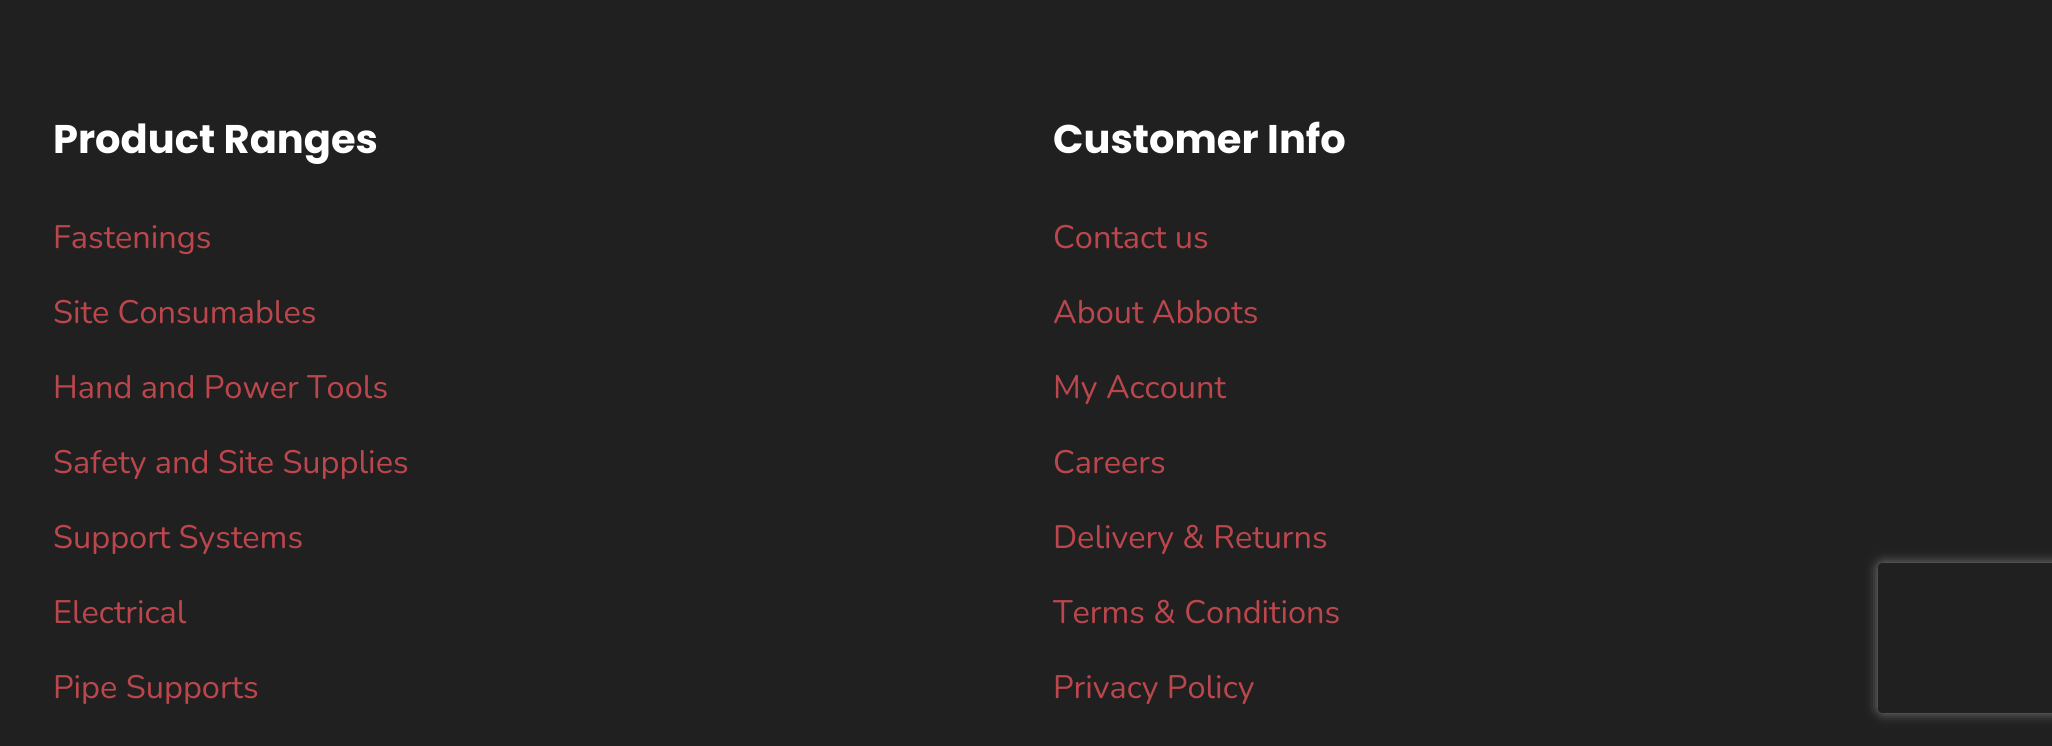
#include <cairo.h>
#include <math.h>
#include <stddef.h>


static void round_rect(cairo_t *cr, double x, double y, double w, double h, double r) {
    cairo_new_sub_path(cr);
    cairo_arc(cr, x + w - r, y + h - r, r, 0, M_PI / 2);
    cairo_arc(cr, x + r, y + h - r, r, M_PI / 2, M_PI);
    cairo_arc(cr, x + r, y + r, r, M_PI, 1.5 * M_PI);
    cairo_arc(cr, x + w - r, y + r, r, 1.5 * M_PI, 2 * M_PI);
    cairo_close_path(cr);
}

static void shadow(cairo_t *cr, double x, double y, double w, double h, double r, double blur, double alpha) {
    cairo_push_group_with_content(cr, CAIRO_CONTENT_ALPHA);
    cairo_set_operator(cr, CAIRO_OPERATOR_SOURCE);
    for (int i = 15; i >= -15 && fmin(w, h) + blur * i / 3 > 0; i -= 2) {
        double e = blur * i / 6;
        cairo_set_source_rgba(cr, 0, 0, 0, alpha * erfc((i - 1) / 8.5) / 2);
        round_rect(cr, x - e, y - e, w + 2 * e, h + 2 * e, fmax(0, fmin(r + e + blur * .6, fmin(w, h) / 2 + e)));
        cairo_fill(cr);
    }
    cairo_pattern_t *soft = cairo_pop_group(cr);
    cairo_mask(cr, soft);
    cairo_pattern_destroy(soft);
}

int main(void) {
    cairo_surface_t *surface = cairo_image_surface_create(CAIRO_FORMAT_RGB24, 2052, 746);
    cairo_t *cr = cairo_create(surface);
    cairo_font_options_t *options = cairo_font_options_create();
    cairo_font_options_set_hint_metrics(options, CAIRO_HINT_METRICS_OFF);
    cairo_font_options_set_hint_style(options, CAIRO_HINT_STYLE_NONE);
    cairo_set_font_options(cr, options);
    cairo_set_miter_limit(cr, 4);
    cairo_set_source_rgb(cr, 0.125, 0.125, 0.125);
    cairo_paint(cr);
    cairo_select_font_face(cr, "Poppins", CAIRO_FONT_SLANT_NORMAL, CAIRO_FONT_WEIGHT_BOLD);
    cairo_set_font_size(cr, 40);
    cairo_set_source_rgb(cr, 1, 1, 1);
    cairo_move_to(cr, 53, 153);
    cairo_show_text(cr, "Product Ranges");
    cairo_select_font_face(cr, "Nunito", CAIRO_FONT_SLANT_NORMAL, CAIRO_FONT_WEIGHT_NORMAL);
    cairo_set_font_size(cr, 32.5);
    cairo_set_source_rgb(cr, 0.733, 0.275, 0.298);
    cairo_move_to(cr, 53, 248);
    cairo_show_text(cr, "Fastenings");
    cairo_move_to(cr, 53, 323);
    cairo_show_text(cr, "Site Consumables");
    cairo_move_to(cr, 53, 398);
    cairo_show_text(cr, "Hand and Power Tools");
    cairo_move_to(cr, 53, 473);
    cairo_show_text(cr, "Safety and Site Supplies");
    cairo_move_to(cr, 53, 548);
    cairo_show_text(cr, "Support Systems");
    cairo_move_to(cr, 53, 623);
    cairo_show_text(cr, "Electrical");
    cairo_move_to(cr, 53, 698);
    cairo_show_text(cr, "Pipe Supports");
    cairo_select_font_face(cr, "Poppins", CAIRO_FONT_SLANT_NORMAL, CAIRO_FONT_WEIGHT_BOLD);
    cairo_set_font_size(cr, 40);
    cairo_set_source_rgb(cr, 1, 1, 1);
    cairo_move_to(cr, 1053, 153);
    cairo_show_text(cr, "Customer Info");
    cairo_select_font_face(cr, "Nunito", CAIRO_FONT_SLANT_NORMAL, CAIRO_FONT_WEIGHT_NORMAL);
    cairo_set_font_size(cr, 32.5);
    cairo_set_source_rgb(cr, 0.733, 0.275, 0.298);
    cairo_move_to(cr, 1053, 248);
    cairo_show_text(cr, "Contact us");
    cairo_move_to(cr, 1053, 323);
    cairo_show_text(cr, "About Abbots");
    cairo_move_to(cr, 1053, 398);
    cairo_show_text(cr, "My Account");
    cairo_move_to(cr, 1053, 473);
    cairo_show_text(cr, "Careers");
    cairo_move_to(cr, 1053, 548);
    cairo_show_text(cr, "Delivery & Returns");
    cairo_move_to(cr, 1053, 623);
    cairo_show_text(cr, "Terms & Conditions");
    cairo_move_to(cr, 1053, 698);
    cairo_show_text(cr, "Privacy Policy");
    cairo_save(cr);
    cairo_set_fill_rule(cr, CAIRO_FILL_RULE_EVEN_ODD);
    cairo_new_path(cr);
    cairo_move_to(cr, 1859, 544);
    cairo_line_to(cr, 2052, 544);
    cairo_line_to(cr, 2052, 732);
    cairo_line_to(cr, 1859, 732);
    cairo_close_path(cr);
    cairo_move_to(cr, 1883, 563);
    cairo_line_to(cr, 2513, 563);
    cairo_curve_to(cr, 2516, 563, 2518, 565, 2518, 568);
    cairo_line_to(cr, 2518, 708);
    cairo_curve_to(cr, 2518, 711, 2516, 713, 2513, 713);
    cairo_line_to(cr, 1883, 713);
    cairo_curve_to(cr, 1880, 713, 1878, 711, 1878, 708);
    cairo_line_to(cr, 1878, 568);
    cairo_curve_to(cr, 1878, 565, 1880, 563, 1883, 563);
    cairo_close_path(cr);
    cairo_clip(cr);
    cairo_set_source_rgb(cr, 0.502, 0.502, 0.502);
    shadow(cr, 1878, 563, 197, 150, 5, 6, 1);
    cairo_restore(cr);
    cairo_surface_write_to_png(surface, "page.png");
    cairo_font_options_destroy(options);
    cairo_destroy(cr);
    cairo_surface_destroy(surface);
    return 0;
}
